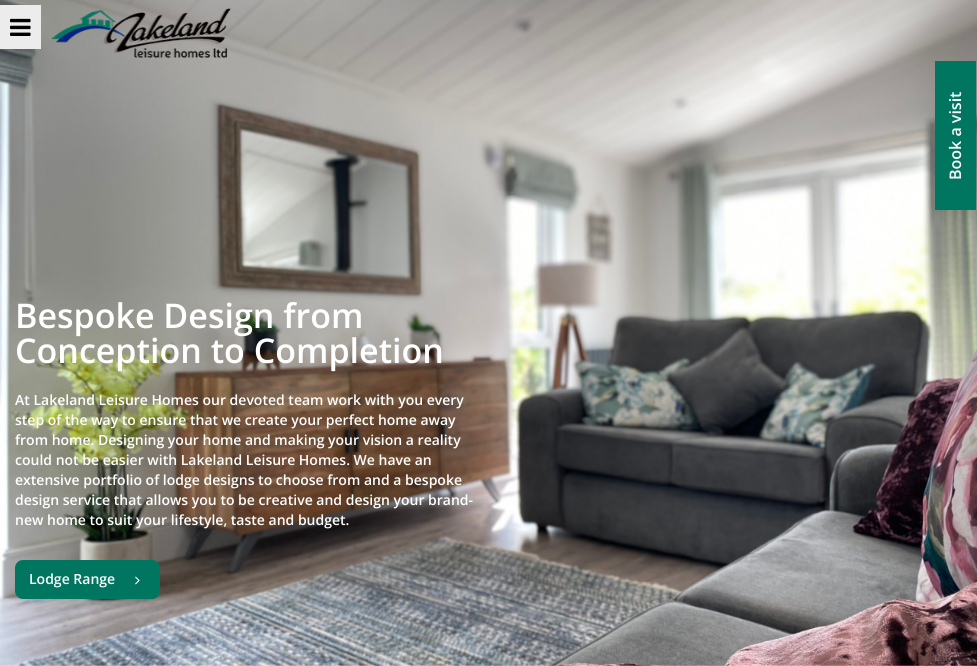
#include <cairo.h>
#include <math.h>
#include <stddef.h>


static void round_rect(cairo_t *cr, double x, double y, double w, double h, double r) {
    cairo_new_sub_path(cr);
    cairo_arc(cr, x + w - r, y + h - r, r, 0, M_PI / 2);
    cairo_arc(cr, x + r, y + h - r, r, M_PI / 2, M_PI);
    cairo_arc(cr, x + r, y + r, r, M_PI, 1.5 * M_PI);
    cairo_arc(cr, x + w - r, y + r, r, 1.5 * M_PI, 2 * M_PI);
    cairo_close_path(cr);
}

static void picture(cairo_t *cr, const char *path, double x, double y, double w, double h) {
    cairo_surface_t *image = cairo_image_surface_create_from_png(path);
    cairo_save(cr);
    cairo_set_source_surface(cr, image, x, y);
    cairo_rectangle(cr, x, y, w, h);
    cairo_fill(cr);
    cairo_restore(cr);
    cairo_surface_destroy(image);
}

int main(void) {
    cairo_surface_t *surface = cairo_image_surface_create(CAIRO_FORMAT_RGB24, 977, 666);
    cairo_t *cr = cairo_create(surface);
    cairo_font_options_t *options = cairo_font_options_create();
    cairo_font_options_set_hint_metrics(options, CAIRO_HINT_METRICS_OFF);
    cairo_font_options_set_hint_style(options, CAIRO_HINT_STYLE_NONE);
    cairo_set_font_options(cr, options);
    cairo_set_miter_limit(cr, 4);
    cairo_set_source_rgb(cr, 1, 1, 1);
    cairo_paint(cr);
    picture(cr, "img3.png", 0, 0, 977, 666);
    cairo_set_source_rgb(cr, 0.922, 0.922, 0.922);
    cairo_rectangle(cr, 0, 5, 41, 44);
    cairo_fill(cr);
    picture(cr, "img1.png", 10, 18, 21, 18);
    picture(cr, "img2.png", 51, 8, 180, 50);
    cairo_set_source_rgb(cr, 0, 0.463, 0.376);
    cairo_rectangle(cr, 935, 61, 41, 149);
    cairo_fill(cr);
    cairo_select_font_face(cr, "Open Sans SemiBold", CAIRO_FONT_SLANT_NORMAL, CAIRO_FONT_WEIGHT_NORMAL);
    cairo_set_font_size(cr, 16);
    cairo_set_source_rgb(cr, 1, 1, 1);
    cairo_save(cr);
    cairo_translate(cr, 961, 180);
    cairo_rotate(cr, -90 * M_PI / 180);
    cairo_move_to(cr, 0, 0);
    cairo_show_text(cr, "Book a visit");
    cairo_restore(cr);
    cairo_set_font_size(cr, 34);
    cairo_move_to(cr, 15, 328);
    cairo_show_text(cr, "Bespoke Design from");
    cairo_move_to(cr, 15, 363);
    cairo_show_text(cr, "Conception to Completion");
    cairo_set_font_size(cr, 14);
    cairo_move_to(cr, 15, 405);
    cairo_show_text(cr, "At Lakeland Leisure Homes our devoted team work with you every");
    cairo_move_to(cr, 15, 425);
    cairo_show_text(cr, "step of the way to ensure that we create your perfect home away");
    cairo_move_to(cr, 15, 445);
    cairo_show_text(cr, "from home. Designing your home and making your vision a reality");
    cairo_move_to(cr, 15, 465);
    cairo_show_text(cr, "could not be easier with Lakeland Leisure Homes. We have an");
    cairo_move_to(cr, 15, 485);
    cairo_show_text(cr, "extensive portfolio of lodge designs to choose from and a bespoke");
    cairo_move_to(cr, 15, 505);
    cairo_show_text(cr, "design service that allows you to be creative and design your brand-");
    cairo_move_to(cr, 15, 525);
    cairo_show_text(cr, "new home to suit your lifestyle, taste and budget.");
    cairo_set_source_rgb(cr, 0, 0.463, 0.376);
    round_rect(cr, 15, 560, 145, 39, 8);
    cairo_fill(cr);
    cairo_set_source_rgb(cr, 1, 1, 1);
    cairo_move_to(cr, 29, 584);
    cairo_show_text(cr, "Lodge Range");
    picture(cr, "img4.png", 135, 576, 5, 9);
    cairo_surface_write_to_png(surface, "page.png");
    cairo_font_options_destroy(options);
    cairo_destroy(cr);
    cairo_surface_destroy(surface);
    return 0;
}
